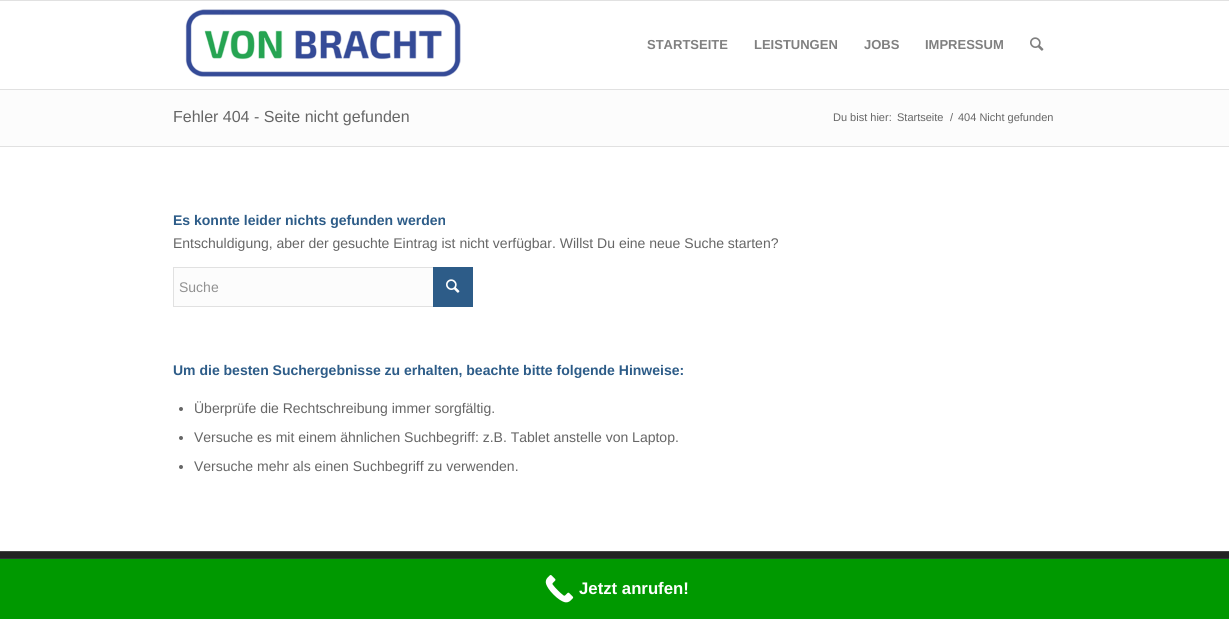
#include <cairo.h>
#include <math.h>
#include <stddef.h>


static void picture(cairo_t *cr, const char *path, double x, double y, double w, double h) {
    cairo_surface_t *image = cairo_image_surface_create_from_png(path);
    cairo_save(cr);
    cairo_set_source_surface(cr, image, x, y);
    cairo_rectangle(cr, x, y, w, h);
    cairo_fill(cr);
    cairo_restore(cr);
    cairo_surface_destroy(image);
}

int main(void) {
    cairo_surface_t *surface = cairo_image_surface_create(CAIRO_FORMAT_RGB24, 1229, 619);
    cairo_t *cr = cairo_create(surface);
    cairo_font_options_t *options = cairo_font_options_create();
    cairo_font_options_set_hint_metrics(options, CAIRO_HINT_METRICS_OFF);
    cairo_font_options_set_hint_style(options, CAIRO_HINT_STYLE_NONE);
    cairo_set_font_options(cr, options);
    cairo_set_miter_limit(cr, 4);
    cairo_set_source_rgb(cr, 1, 1, 1);
    cairo_paint(cr);
    cairo_set_source_rgb(cr, 0.882, 0.882, 0.882);
    cairo_rectangle(cr, 0, 0, 1229, 1);
    cairo_fill(cr);
    cairo_rectangle(cr, 0, 89, 1229, 1);
    cairo_fill(cr);
    picture(cr, "img1.png", 185, 9, 276, 68);
    cairo_select_font_face(cr, "Arimo", CAIRO_FONT_SLANT_NORMAL, CAIRO_FONT_WEIGHT_BOLD);
    cairo_set_font_size(cr, 13);
    cairo_set_source_rgb(cr, 0.502, 0.502, 0.502);
    cairo_move_to(cr, 647, 49);
    cairo_show_text(cr, "STARTSEITE");
    cairo_move_to(cr, 754, 49);
    cairo_show_text(cr, "LEISTUNGEN");
    cairo_move_to(cr, 864, 49);
    cairo_show_text(cr, "JOBS");
    cairo_move_to(cr, 925, 49);
    cairo_show_text(cr, "IMPRESSUM");
    picture(cr, "img2.png", 1030, 37, 14, 14);
    cairo_set_source_rgb(cr, 0.988, 0.988, 0.988);
    cairo_rectangle(cr, 0, 90, 1229, 56);
    cairo_fill(cr);
    cairo_select_font_face(cr, "Arimo", CAIRO_FONT_SLANT_NORMAL, CAIRO_FONT_WEIGHT_NORMAL);
    cairo_set_font_size(cr, 16);
    cairo_set_source_rgb(cr, 0.4, 0.4, 0.4);
    cairo_move_to(cr, 173, 122);
    cairo_show_text(cr, "Fehler 404 - Seite nicht gefunden");
    cairo_set_font_size(cr, 11);
    cairo_move_to(cr, 833, 121);
    cairo_show_text(cr, "Du bist hier:");
    cairo_move_to(cr, 897, 121);
    cairo_show_text(cr, "Startseite");
    cairo_move_to(cr, 950, 121);
    cairo_show_text(cr, "/");
    cairo_move_to(cr, 958, 121);
    cairo_show_text(cr, "404 Nicht gefunden");
    cairo_set_source_rgb(cr, 0.882, 0.882, 0.882);
    cairo_rectangle(cr, 0, 146, 1229, 1);
    cairo_fill(cr);
    cairo_select_font_face(cr, "Arimo", CAIRO_FONT_SLANT_NORMAL, CAIRO_FONT_WEIGHT_BOLD);
    cairo_set_font_size(cr, 14);
    cairo_set_source_rgb(cr, 0.176, 0.361, 0.533);
    cairo_move_to(cr, 173, 225);
    cairo_show_text(cr, "Es konnte leider nichts gefunden werden");
    cairo_select_font_face(cr, "Arimo", CAIRO_FONT_SLANT_NORMAL, CAIRO_FONT_WEIGHT_NORMAL);
    cairo_set_source_rgb(cr, 0.4, 0.4, 0.4);
    cairo_move_to(cr, 173, 248);
    cairo_show_text(cr, "Entschuldigung, aber der gesuchte Eintrag ist nicht verfügbar. Willst Du eine neue Suche starten?");
    cairo_set_source_rgb(cr, 0.988, 0.988, 0.988);
    cairo_rectangle(cr, 174, 268, 259, 38);
    cairo_fill(cr);
    cairo_rectangle(cr, 173.5, 267.5, 299, 39);
    cairo_set_source_rgb(cr, 0.882, 0.882, 0.882);
    cairo_set_line_width(cr, 1);
    cairo_stroke(cr);
    cairo_select_font_face(cr, "Liberation Sans", CAIRO_FONT_SLANT_NORMAL, CAIRO_FONT_WEIGHT_NORMAL);
    cairo_set_source_rgb(cr, 0.569, 0.569, 0.569);
    cairo_move_to(cr, 179, 292);
    cairo_show_text(cr, "Suche");
    cairo_set_source_rgb(cr, 0.176, 0.361, 0.533);
    cairo_rectangle(cr, 433, 267, 40, 40);
    cairo_fill(cr);
    picture(cr, "img3.png", 446, 279, 14, 14);
    cairo_select_font_face(cr, "Arimo", CAIRO_FONT_SLANT_NORMAL, CAIRO_FONT_WEIGHT_BOLD);
    cairo_move_to(cr, 173, 375);
    cairo_show_text(cr, "Um die besten Suchergebnisse zu erhalten, beachte bitte folgende Hinweise:");
    cairo_set_source_rgb(cr, 0.4, 0.4, 0.4);
    cairo_new_path(cr);
    cairo_arc(cr, 181, 409, 2, 0, 2 * M_PI);
    cairo_fill(cr);
    cairo_select_font_face(cr, "Arimo", CAIRO_FONT_SLANT_NORMAL, CAIRO_FONT_WEIGHT_NORMAL);
    cairo_move_to(cr, 194, 413);
    cairo_show_text(cr, "Überprüfe die Rechtschreibung immer sorgfältig.");
    cairo_new_path(cr);
    cairo_arc(cr, 181, 438, 2, 0, 2 * M_PI);
    cairo_fill(cr);
    cairo_move_to(cr, 194, 442);
    cairo_show_text(cr, "Versuche es mit einem ähnlichen Suchbegriff: z.B. Tablet anstelle von Laptop.");
    cairo_new_path(cr);
    cairo_arc(cr, 181, 467, 2, 0, 2 * M_PI);
    cairo_fill(cr);
    cairo_move_to(cr, 194, 471);
    cairo_show_text(cr, "Versuche mehr als einen Suchbegriff zu verwenden.");
    cairo_set_source_rgb(cr, 0.133, 0.133, 0.133);
    cairo_rectangle(cr, 0, 552, 1229, 6);
    cairo_fill(cr);
    cairo_set_source_rgb(cr, 0.267, 0.267, 0.267);
    cairo_rectangle(cr, 0, 551, 1229, 1);
    cairo_fill(cr);
    cairo_set_source_rgb(cr, 0.196, 0.196, 0.227);
    cairo_rectangle(cr, 0, 558, 1229, 1);
    cairo_fill(cr);
    cairo_set_source_rgb(cr, 0, 0.6, 0);
    cairo_rectangle(cr, 0, 559, 1229, 60);
    cairo_fill(cr);
    picture(cr, "img4.png", 545, 575, 29, 28);
    cairo_select_font_face(cr, "Arimo", CAIRO_FONT_SLANT_NORMAL, CAIRO_FONT_WEIGHT_BOLD);
    cairo_set_font_size(cr, 16.75);
    cairo_set_source_rgb(cr, 1, 1, 1);
    cairo_move_to(cr, 579, 594);
    cairo_show_text(cr, "Jetzt anrufen!");
    cairo_surface_write_to_png(surface, "page.png");
    cairo_font_options_destroy(options);
    cairo_destroy(cr);
    cairo_surface_destroy(surface);
    return 0;
}
